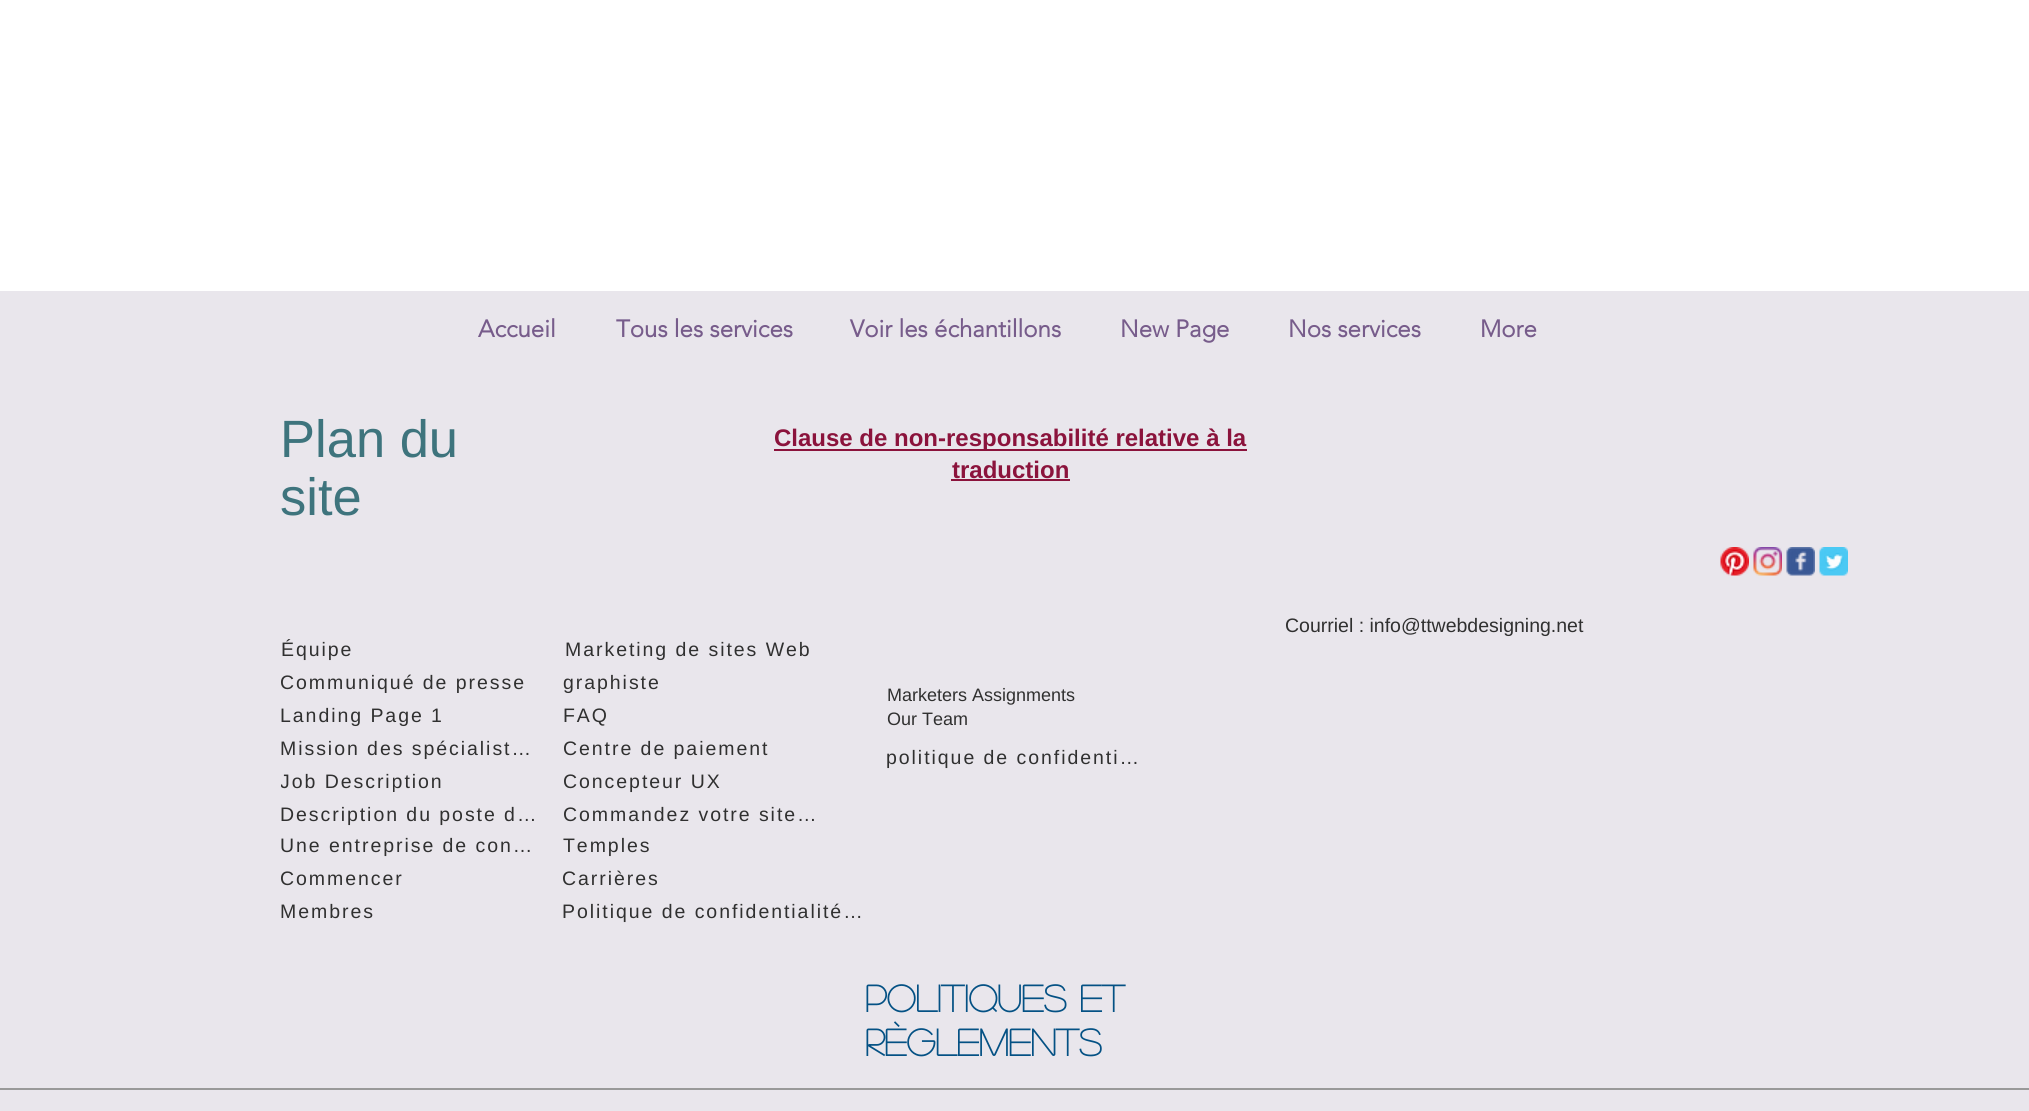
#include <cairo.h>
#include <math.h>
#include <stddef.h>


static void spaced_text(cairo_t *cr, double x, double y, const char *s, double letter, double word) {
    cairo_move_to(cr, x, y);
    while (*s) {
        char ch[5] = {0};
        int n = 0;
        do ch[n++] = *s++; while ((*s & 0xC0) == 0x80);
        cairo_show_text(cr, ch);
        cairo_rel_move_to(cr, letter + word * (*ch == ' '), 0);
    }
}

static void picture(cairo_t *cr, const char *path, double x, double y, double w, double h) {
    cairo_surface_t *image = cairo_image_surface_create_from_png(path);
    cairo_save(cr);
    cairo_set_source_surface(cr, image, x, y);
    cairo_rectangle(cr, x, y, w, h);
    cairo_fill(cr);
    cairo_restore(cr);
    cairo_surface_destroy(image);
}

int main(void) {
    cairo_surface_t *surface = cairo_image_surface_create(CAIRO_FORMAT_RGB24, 2029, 1111);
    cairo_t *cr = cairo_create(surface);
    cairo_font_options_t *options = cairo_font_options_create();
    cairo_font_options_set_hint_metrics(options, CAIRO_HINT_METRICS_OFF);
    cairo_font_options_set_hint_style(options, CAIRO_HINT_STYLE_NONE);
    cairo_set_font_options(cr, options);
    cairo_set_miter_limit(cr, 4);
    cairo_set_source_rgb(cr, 1, 1, 1);
    cairo_paint(cr);
    cairo_set_source_rgb(cr, 0.914, 0.902, 0.922);
    cairo_rectangle(cr, 0, 291, 2029, 820);
    cairo_fill(cr);
    cairo_select_font_face(cr, "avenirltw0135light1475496", CAIRO_FONT_SLANT_NORMAL, CAIRO_FONT_WEIGHT_BOLD);
    cairo_set_font_size(cr, 24);
    cairo_set_source_rgb(cr, 0.467, 0.361, 0.545);
    cairo_move_to(cr, 478, 337);
    cairo_show_text(cr, "Accueil");
    cairo_move_to(cr, 616, 337);
    cairo_show_text(cr, "Tous les services");
    cairo_move_to(cr, 850, 337);
    cairo_show_text(cr, "Voir les échantillons");
    cairo_move_to(cr, 1120, 337);
    cairo_show_text(cr, "New Page");
    cairo_move_to(cr, 1288, 337);
    cairo_show_text(cr, "Nos services");
    cairo_move_to(cr, 1480, 337);
    cairo_show_text(cr, "More");
    cairo_select_font_face(cr, "Liberation Sans", CAIRO_FONT_SLANT_NORMAL, CAIRO_FONT_WEIGHT_NORMAL);
    cairo_set_font_size(cr, 52.5);
    cairo_set_source_rgb(cr, 0.243, 0.455, 0.49);
    cairo_move_to(cr, 280, 457);
    cairo_show_text(cr, "Plan du");
    cairo_move_to(cr, 280, 515);
    cairo_show_text(cr, "site");
    cairo_set_source_rgb(cr, 0.545, 0.078, 0.235);
    cairo_rectangle(cr, 774, 449, 473, 2);
    cairo_fill(cr);
    cairo_select_font_face(cr, "Liberation Sans", CAIRO_FONT_SLANT_NORMAL, CAIRO_FONT_WEIGHT_BOLD);
    cairo_set_font_size(cr, 24);
    cairo_move_to(cr, 774, 446);
    cairo_show_text(cr, "Clause de non-responsabilité relative à la");
    cairo_move_to(cr, 952, 478);
    cairo_show_text(cr, "traduction");
    cairo_rectangle(cr, 951, 479, 119, 2);
    cairo_fill(cr);
    picture(cr, "img1.png", 1720, 547, 29, 29);
    picture(cr, "img2.png", 1753, 547, 29, 29);
    picture(cr, "img3.png", 1786, 547, 29, 29);
    picture(cr, "img4.png", 1819, 547, 29, 29);
    cairo_select_font_face(cr, "Liberation Sans", CAIRO_FONT_SLANT_NORMAL, CAIRO_FONT_WEIGHT_NORMAL);
    cairo_set_font_size(cr, 19.5);
    cairo_set_source_rgb(cr, 0.188, 0.188, 0.188);
    cairo_move_to(cr, 1285, 632);
    cairo_show_text(cr, "Courriel : info@ttwebdesigning.net");
    spaced_text(cr, 281, 656, "Équipe", 1.95, 0);
    spaced_text(cr, 565, 656, "Marketing de sites Web", 1.95, 0);
    cairo_save(cr);
    cairo_rectangle(cr, 281, 671, 246, 22);
    cairo_clip(cr);
    spaced_text(cr, 280, 689, "Communiqué de presse", 1.95, 0);
    cairo_restore(cr);
    spaced_text(cr, 563, 689, "graphiste", 1.95, 0);
    spaced_text(cr, 280, 722, "Landing Page 1", 1.95, 0);
    spaced_text(cr, 563, 722, "FAQ", 1.95, 0);
    cairo_set_font_size(cr, 18);
    cairo_move_to(cr, 887, 701);
    cairo_show_text(cr, "Marketers Assignments");
    cairo_move_to(cr, 887, 725);
    cairo_show_text(cr, "Our Team");
    cairo_set_font_size(cr, 19.5);
    spaced_text(cr, 280, 755, "Mission des spécialist…", 1.95, 0);
    spaced_text(cr, 563, 755, "Centre de paiement", 1.95, 0);
    spaced_text(cr, 886, 764, "politique de confidenti…", 1.95, 0);
    cairo_save(cr);
    cairo_rectangle(cr, 281, 770, 163, 22);
    cairo_clip(cr);
    spaced_text(cr, 280, 788, "Job Description", 1.95, 0);
    cairo_restore(cr);
    spaced_text(cr, 563, 788, "Concepteur UX", 1.95, 0);
    spaced_text(cr, 280, 821, "Description du poste d…", 1.95, 0);
    spaced_text(cr, 563, 821, "Commandez votre site…", 1.95, 0);
    spaced_text(cr, 280, 852, "Une entreprise de con…", 1.95, 0);
    spaced_text(cr, 563, 852, "Temples", 1.95, 0);
    cairo_save(cr);
    cairo_rectangle(cr, 281, 867, 123, 23);
    cairo_clip(cr);
    spaced_text(cr, 280, 885, "Commencer", 1.95, 0);
    cairo_restore(cr);
    cairo_save(cr);
    cairo_rectangle(cr, 563, 867, 97, 23);
    cairo_clip(cr);
    spaced_text(cr, 562, 885, "Carrières", 1.95, 0);
    cairo_restore(cr);
    spaced_text(cr, 280, 918, "Membres", 1.95, 0);
    spaced_text(cr, 562, 918, "Politique de confidentialité…", 1.95, 0);
    cairo_select_font_face(cr, "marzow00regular", CAIRO_FONT_SLANT_NORMAL, CAIRO_FONT_WEIGHT_BOLD);
    cairo_set_font_size(cr, 37.5);
    cairo_set_source_rgb(cr, 0.016, 0.318, 0.518);
    cairo_move_to(cr, 865, 1012);
    cairo_show_text(cr, "POLITIQUES ET");
    cairo_move_to(cr, 865, 1056);
    cairo_show_text(cr, "RÈGLEMENTS");
    cairo_set_source_rgb(cr, 0.6, 0.6, 0.6);
    cairo_rectangle(cr, 0, 1088, 2029, 2);
    cairo_fill(cr);
    cairo_surface_write_to_png(surface, "page.png");
    cairo_font_options_destroy(options);
    cairo_destroy(cr);
    cairo_surface_destroy(surface);
    return 0;
}
